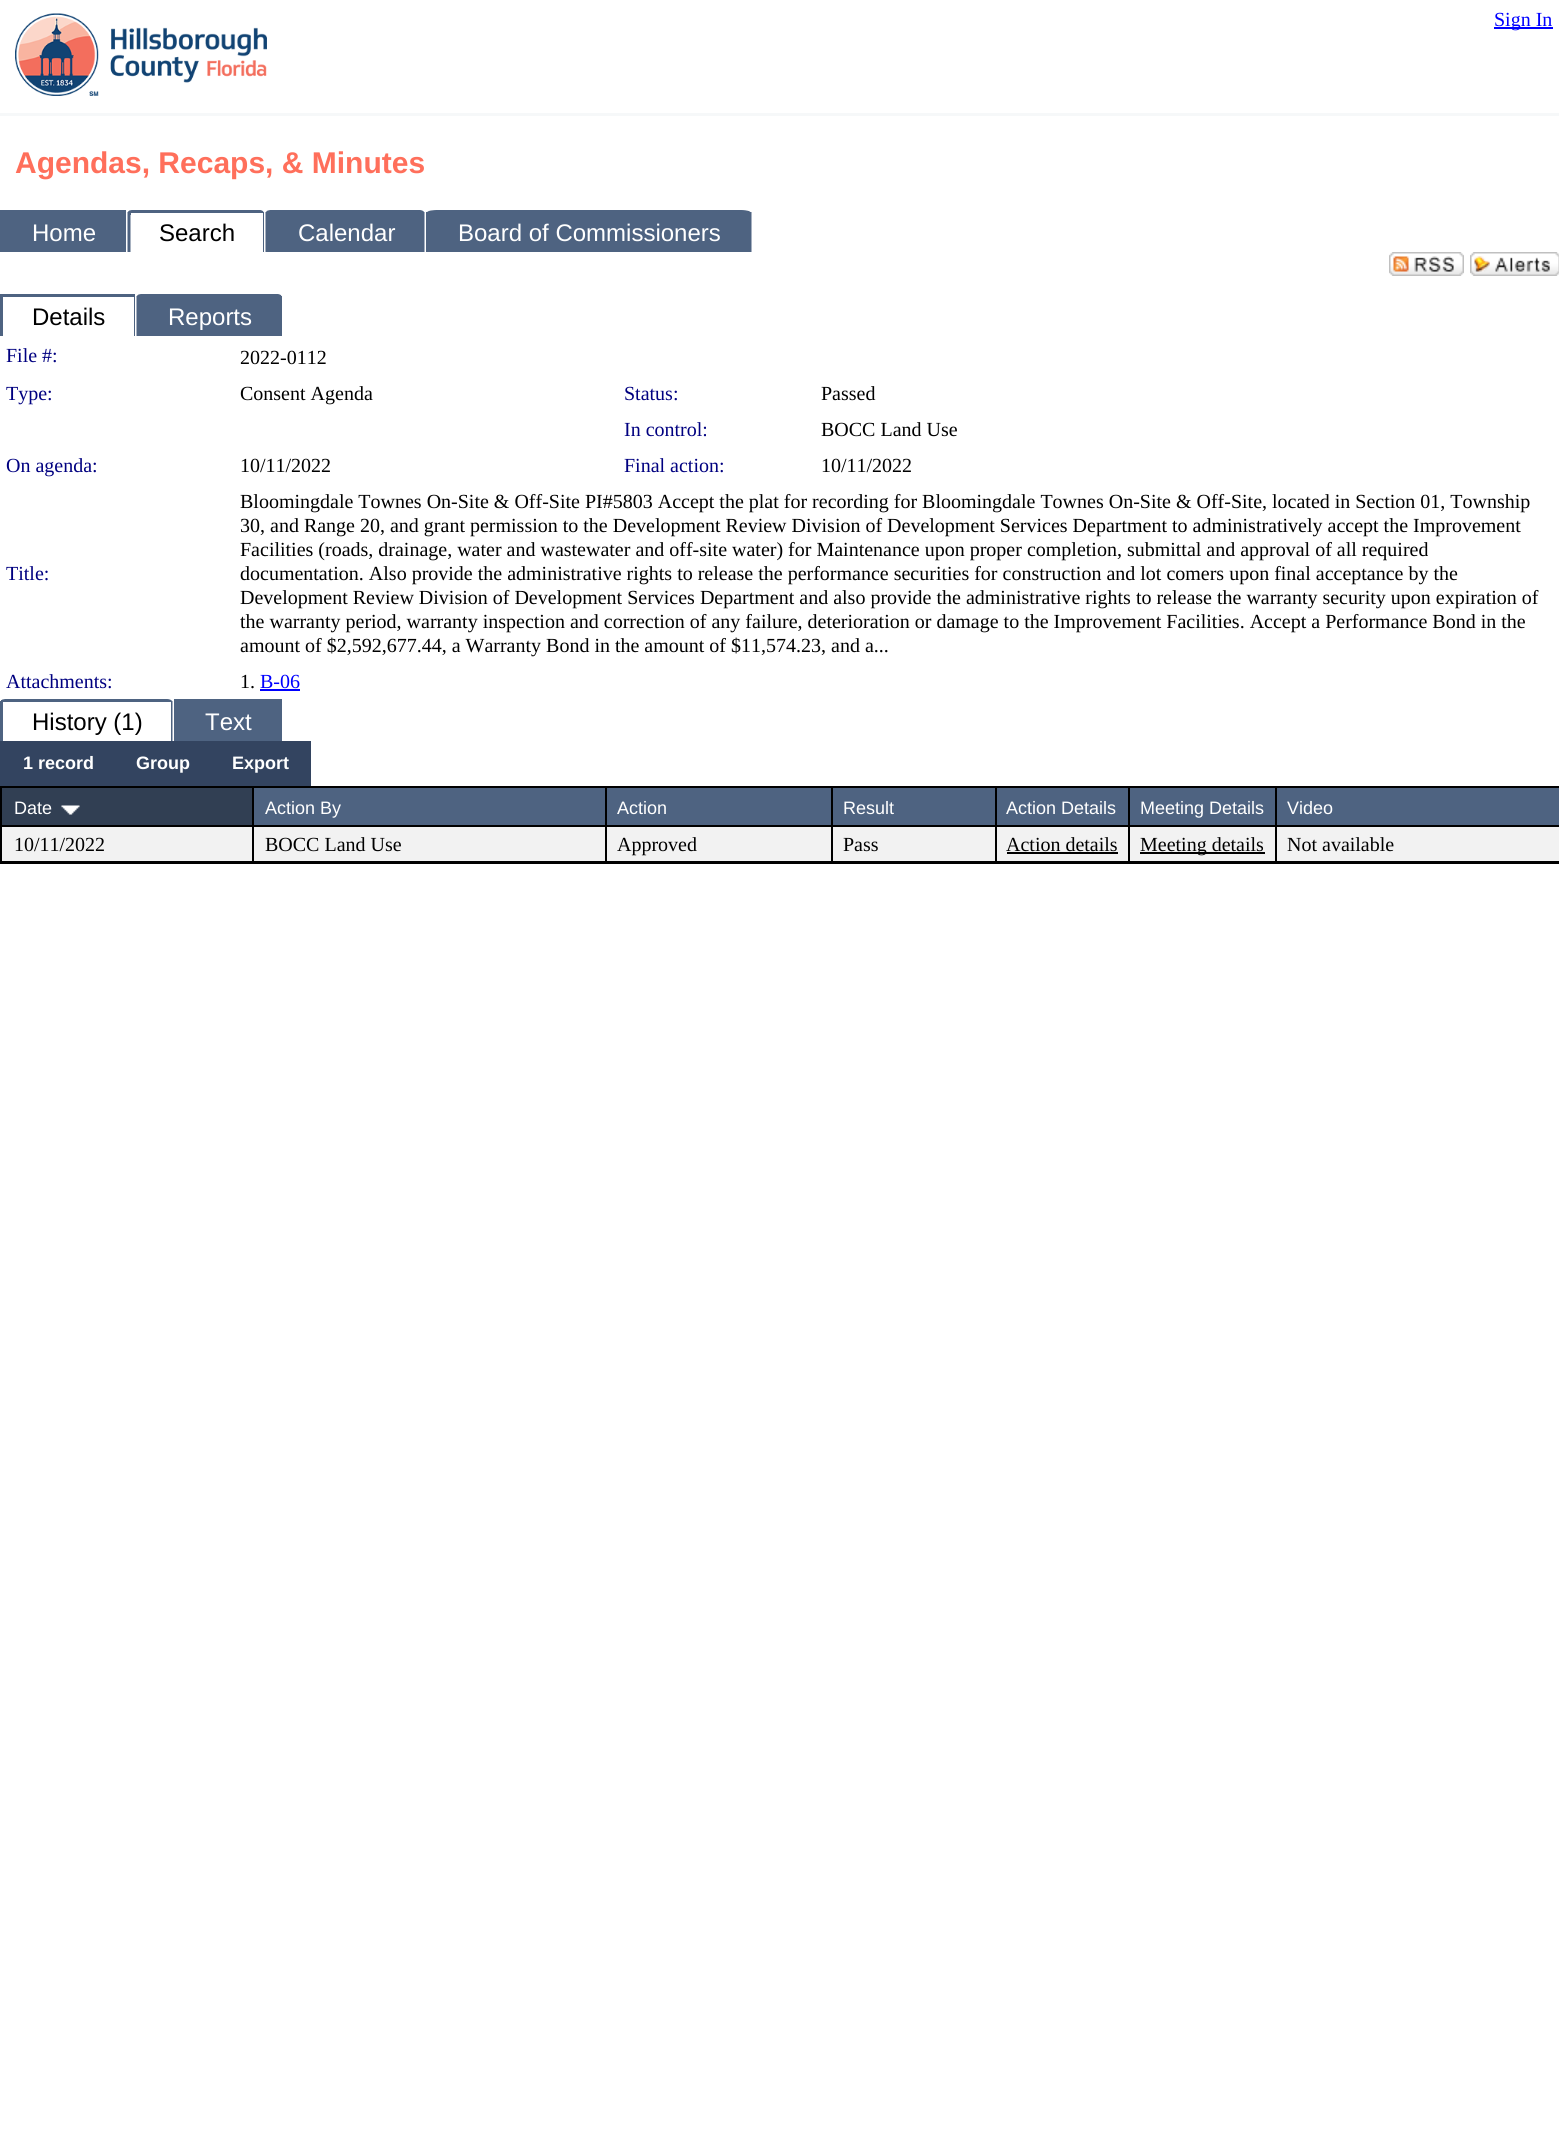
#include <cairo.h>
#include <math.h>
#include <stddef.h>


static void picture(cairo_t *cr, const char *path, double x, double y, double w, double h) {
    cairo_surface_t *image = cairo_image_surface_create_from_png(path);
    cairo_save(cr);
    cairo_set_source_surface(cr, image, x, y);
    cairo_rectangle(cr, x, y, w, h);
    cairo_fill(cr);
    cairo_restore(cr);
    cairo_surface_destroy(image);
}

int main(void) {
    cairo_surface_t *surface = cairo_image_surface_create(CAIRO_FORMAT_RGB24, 1559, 2139);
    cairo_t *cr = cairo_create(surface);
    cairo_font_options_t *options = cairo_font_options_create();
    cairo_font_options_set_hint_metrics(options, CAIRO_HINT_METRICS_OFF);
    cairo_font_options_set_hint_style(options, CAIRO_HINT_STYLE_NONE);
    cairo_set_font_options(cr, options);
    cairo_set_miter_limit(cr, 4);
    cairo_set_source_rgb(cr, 1, 1, 1);
    cairo_paint(cr);
    cairo_set_source_rgb(cr, 0, 0, 1);
    cairo_rectangle(cr, 1494, 27, 59, 2);
    cairo_fill(cr);
    cairo_select_font_face(cr, "Liberation Serif", CAIRO_FONT_SLANT_NORMAL, CAIRO_FONT_WEIGHT_NORMAL);
    cairo_set_font_size(cr, 20);
    cairo_move_to(cr, 1494, 26);
    cairo_show_text(cr, "Sign In");
    cairo_set_source_rgb(cr, 0.961, 0.969, 0.973);
    cairo_rectangle(cr, 0, 113, 1559, 3);
    cairo_fill(cr);
    picture(cr, "img1.png", 15, 13, 252, 83);
    cairo_select_font_face(cr, "Liberation Sans", CAIRO_FONT_SLANT_NORMAL, CAIRO_FONT_WEIGHT_BOLD);
    cairo_set_font_size(cr, 30);
    cairo_set_source_rgb(cr, 1, 0.435, 0.357);
    cairo_move_to(cr, 15, 173);
    cairo_show_text(cr, "Agendas, Recaps, & Minutes");
    cairo_set_source_rgb(cr, 0.306, 0.388, 0.506);
    cairo_rectangle(cr, 0, 210, 126, 42);
    cairo_fill(cr);
    cairo_select_font_face(cr, "Liberation Sans", CAIRO_FONT_SLANT_NORMAL, CAIRO_FONT_WEIGHT_NORMAL);
    cairo_set_font_size(cr, 24);
    cairo_set_source_rgb(cr, 1, 1, 1);
    cairo_move_to(cr, 32, 241);
    cairo_show_text(cr, "Home");
    picture(cr, "img2.png", 127, 210, 137, 42);
    cairo_rectangle(cr, 131, 213, 132, 39);
    cairo_fill(cr);
    cairo_set_source_rgb(cr, 0.655, 0.694, 0.753);
    cairo_rectangle(cr, 130, 215, 1, 37);
    cairo_fill(cr);
    cairo_set_source_rgb(cr, 0, 0, 0);
    cairo_move_to(cr, 159, 241);
    cairo_show_text(cr, "Search");
    picture(cr, "img3.png", 265, 210, 160, 42);
    cairo_set_source_rgb(cr, 1, 1, 1);
    cairo_move_to(cr, 298, 241);
    cairo_show_text(cr, "Calendar");
    picture(cr, "img4.png", 426, 210, 326, 42);
    cairo_move_to(cr, 458, 241);
    cairo_show_text(cr, "Board of Commissioners");
    picture(cr, "img5.png", 1389, 252, 75, 24);
    picture(cr, "img6.png", 1470, 252, 89, 24);
    cairo_set_source_rgb(cr, 0.306, 0.388, 0.506);
    cairo_rectangle(cr, 0, 294, 135, 42);
    cairo_fill(cr);
    cairo_set_source_rgb(cr, 1, 1, 1);
    cairo_rectangle(cr, 3, 297, 131, 39);
    cairo_fill(cr);
    cairo_set_source_rgb(cr, 0, 0, 0);
    cairo_move_to(cr, 32, 325);
    cairo_show_text(cr, "Details");
    picture(cr, "img7.png", 136, 294, 146, 42);
    cairo_set_source_rgb(cr, 1, 1, 1);
    cairo_move_to(cr, 168, 325);
    cairo_show_text(cr, "Reports");
    cairo_select_font_face(cr, "Liberation Serif", CAIRO_FONT_SLANT_NORMAL, CAIRO_FONT_WEIGHT_NORMAL);
    cairo_set_font_size(cr, 20);
    cairo_set_source_rgb(cr, 0, 0, 0.502);
    cairo_move_to(cr, 6, 362);
    cairo_show_text(cr, "File #:");
    cairo_set_source_rgb(cr, 0, 0, 0);
    cairo_move_to(cr, 240, 364);
    cairo_show_text(cr, "2022-0112");
    cairo_set_source_rgb(cr, 0, 0, 0.502);
    cairo_move_to(cr, 6, 400);
    cairo_show_text(cr, "Type:");
    cairo_set_source_rgb(cr, 0, 0, 0);
    cairo_move_to(cr, 240, 400);
    cairo_show_text(cr, "Consent Agenda");
    cairo_set_source_rgb(cr, 0, 0, 0.502);
    cairo_move_to(cr, 624, 400);
    cairo_show_text(cr, "Status:");
    cairo_set_source_rgb(cr, 0, 0, 0);
    cairo_move_to(cr, 821, 400);
    cairo_show_text(cr, "Passed");
    cairo_set_source_rgb(cr, 0, 0, 0.502);
    cairo_move_to(cr, 624, 436);
    cairo_show_text(cr, "In control:");
    cairo_set_source_rgb(cr, 0, 0, 0);
    cairo_move_to(cr, 821, 436);
    cairo_show_text(cr, "BOCC Land Use");
    cairo_set_source_rgb(cr, 0, 0, 0.502);
    cairo_move_to(cr, 6, 472);
    cairo_show_text(cr, "On agenda:");
    cairo_set_source_rgb(cr, 0, 0, 0);
    cairo_move_to(cr, 240, 472);
    cairo_show_text(cr, "10/11/2022");
    cairo_set_source_rgb(cr, 0, 0, 0.502);
    cairo_move_to(cr, 624, 472);
    cairo_show_text(cr, "Final action:");
    cairo_set_source_rgb(cr, 0, 0, 0);
    cairo_move_to(cr, 821, 472);
    cairo_show_text(cr, "10/11/2022");
    cairo_set_source_rgb(cr, 0, 0, 0.502);
    cairo_move_to(cr, 6, 580);
    cairo_show_text(cr, "Title:");
    cairo_set_source_rgb(cr, 0, 0, 0);
    cairo_move_to(cr, 240, 508);
    cairo_show_text(cr, "Bloomingdale Townes On-Site & Off-Site PI#5803 Accept the plat for recording for Bloomingdale Townes On-Site & Off-Site, located in Section 01, Township");
    cairo_move_to(cr, 240, 532);
    cairo_show_text(cr, "30, and Range 20, and grant permission to the Development Review Division of Development Services Department to administratively accept the Improvement");
    cairo_move_to(cr, 240, 556);
    cairo_show_text(cr, "Facilities (roads, drainage, water and wastewater and off-site water) for Maintenance upon proper completion, submittal and approval of all required");
    cairo_move_to(cr, 240, 580);
    cairo_show_text(cr, "documentation. Also provide the administrative rights to release the performance securities for construction and lot comers upon final acceptance by the");
    cairo_move_to(cr, 240, 604);
    cairo_show_text(cr, "Development Review Division of Development Services Department and also provide the administrative rights to release the warranty security upon expiration of");
    cairo_move_to(cr, 240, 628);
    cairo_show_text(cr, "the warranty period, warranty inspection and correction of any failure, deterioration or damage to the Improvement Facilities. Accept a Performance Bond in the");
    cairo_move_to(cr, 240, 652);
    cairo_show_text(cr, "amount of $2,592,677.44, a Warranty Bond in the amount of $11,574.23, and a...");
    cairo_set_source_rgb(cr, 0, 0, 0.502);
    cairo_move_to(cr, 6, 688);
    cairo_show_text(cr, "Attachments:");
    cairo_set_source_rgb(cr, 0, 0, 0);
    cairo_move_to(cr, 240, 688);
    cairo_show_text(cr, "1.");
    cairo_set_source_rgb(cr, 0, 0, 1);
    cairo_move_to(cr, 260, 688);
    cairo_show_text(cr, "B-06");
    cairo_rectangle(cr, 260, 689, 40, 2);
    cairo_fill(cr);
    picture(cr, "img8.png", 0, 699, 173, 42);
    cairo_set_source_rgb(cr, 1, 1, 1);
    cairo_rectangle(cr, 3, 702, 168, 39);
    cairo_fill(cr);
    cairo_select_font_face(cr, "Liberation Sans", CAIRO_FONT_SLANT_NORMAL, CAIRO_FONT_WEIGHT_NORMAL);
    cairo_set_font_size(cr, 24);
    cairo_set_source_rgb(cr, 0, 0, 0);
    cairo_move_to(cr, 32, 730);
    cairo_show_text(cr, "History (1)");
    cairo_set_source_rgb(cr, 0.306, 0.388, 0.506);
    cairo_rectangle(cr, 174, 699, 108, 42);
    cairo_fill(cr);
    cairo_set_source_rgb(cr, 1, 1, 1);
    cairo_move_to(cr, 205, 730);
    cairo_show_text(cr, "Text");
    cairo_set_source_rgb(cr, 0.2, 0.267, 0.376);
    cairo_rectangle(cr, 0, 741, 311, 45);
    cairo_fill(cr);
    cairo_select_font_face(cr, "Liberation Sans", CAIRO_FONT_SLANT_NORMAL, CAIRO_FONT_WEIGHT_BOLD);
    cairo_set_font_size(cr, 18);
    cairo_set_source_rgb(cr, 1, 1, 1);
    cairo_move_to(cr, 23, 769);
    cairo_show_text(cr, "1 record");
    cairo_move_to(cr, 136, 769);
    cairo_show_text(cr, "Group");
    cairo_move_to(cr, 232, 769);
    cairo_show_text(cr, "Export");
    cairo_rectangle(cr, 1, 787, 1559, 76);
    cairo_set_source_rgb(cr, 0, 0, 0);
    cairo_stroke(cr);
    cairo_set_source_rgb(cr, 0.192, 0.247, 0.325);
    cairo_rectangle(cr, 2, 788, 250, 37);
    cairo_fill(cr);
    cairo_set_source_rgb(cr, 0, 0, 0);
    cairo_rectangle(cr, 2, 825, 1557, 2);
    cairo_fill(cr);
    cairo_select_font_face(cr, "Liberation Sans", CAIRO_FONT_SLANT_NORMAL, CAIRO_FONT_WEIGHT_NORMAL);
    cairo_set_source_rgb(cr, 1, 1, 1);
    cairo_move_to(cr, 14, 814);
    cairo_show_text(cr, "Date");
    picture(cr, "img9.png", 61, 805, 19, 10);
    cairo_set_source_rgb(cr, 0.306, 0.388, 0.506);
    cairo_rectangle(cr, 254, 788, 351, 37);
    cairo_fill(cr);
    cairo_set_source_rgb(cr, 0, 0, 0);
    cairo_rectangle(cr, 252, 788, 2, 39);
    cairo_fill(cr);
    cairo_set_source_rgb(cr, 1, 1, 1);
    cairo_move_to(cr, 265, 814);
    cairo_show_text(cr, "Action By");
    cairo_set_source_rgb(cr, 0.306, 0.388, 0.506);
    cairo_rectangle(cr, 607, 788, 224, 37);
    cairo_fill(cr);
    cairo_set_source_rgb(cr, 0, 0, 0);
    cairo_rectangle(cr, 605, 788, 2, 39);
    cairo_fill(cr);
    cairo_set_source_rgb(cr, 1, 1, 1);
    cairo_move_to(cr, 617, 814);
    cairo_show_text(cr, "Action");
    cairo_set_source_rgb(cr, 0.306, 0.388, 0.506);
    cairo_rectangle(cr, 833, 788, 162, 37);
    cairo_fill(cr);
    cairo_set_source_rgb(cr, 0, 0, 0);
    cairo_rectangle(cr, 831, 788, 2, 39);
    cairo_fill(cr);
    cairo_set_source_rgb(cr, 1, 1, 1);
    cairo_move_to(cr, 843, 814);
    cairo_show_text(cr, "Result");
    cairo_set_source_rgb(cr, 0.306, 0.388, 0.506);
    cairo_rectangle(cr, 997, 788, 131, 37);
    cairo_fill(cr);
    cairo_set_source_rgb(cr, 0, 0, 0);
    cairo_rectangle(cr, 995, 788, 2, 39);
    cairo_fill(cr);
    cairo_set_source_rgb(cr, 1, 1, 1);
    cairo_move_to(cr, 1006, 814);
    cairo_show_text(cr, "Action Details");
    cairo_set_source_rgb(cr, 0.306, 0.388, 0.506);
    cairo_rectangle(cr, 1130, 788, 145, 37);
    cairo_fill(cr);
    cairo_set_source_rgb(cr, 0, 0, 0);
    cairo_rectangle(cr, 1128, 788, 2, 39);
    cairo_fill(cr);
    cairo_set_source_rgb(cr, 1, 1, 1);
    cairo_move_to(cr, 1140, 814);
    cairo_show_text(cr, "Meeting Details");
    cairo_set_source_rgb(cr, 0.306, 0.388, 0.506);
    cairo_rectangle(cr, 1277, 788, 282, 37);
    cairo_fill(cr);
    cairo_set_source_rgb(cr, 0, 0, 0);
    cairo_rectangle(cr, 1275, 788, 2, 39);
    cairo_fill(cr);
    cairo_set_source_rgb(cr, 1, 1, 1);
    cairo_move_to(cr, 1287, 814);
    cairo_show_text(cr, "Video");
    cairo_set_source_rgb(cr, 0.949, 0.949, 0.949);
    cairo_rectangle(cr, 2, 827, 250, 34);
    cairo_fill(cr);
    cairo_set_source_rgb(cr, 0, 0, 0);
    cairo_rectangle(cr, 2, 861, 1557, 1);
    cairo_fill(cr);
    cairo_select_font_face(cr, "Liberation Serif", CAIRO_FONT_SLANT_NORMAL, CAIRO_FONT_WEIGHT_NORMAL);
    cairo_set_font_size(cr, 20);
    cairo_move_to(cr, 14, 851);
    cairo_show_text(cr, "10/11/2022");
    cairo_set_source_rgb(cr, 0.949, 0.949, 0.949);
    cairo_rectangle(cr, 254, 827, 351, 34);
    cairo_fill(cr);
    cairo_set_source_rgb(cr, 0, 0, 0);
    cairo_rectangle(cr, 252, 827, 2, 36);
    cairo_fill(cr);
    cairo_move_to(cr, 265, 851);
    cairo_show_text(cr, "BOCC Land Use");
    cairo_set_source_rgb(cr, 0.949, 0.949, 0.949);
    cairo_rectangle(cr, 607, 827, 224, 34);
    cairo_fill(cr);
    cairo_set_source_rgb(cr, 0, 0, 0);
    cairo_rectangle(cr, 605, 827, 2, 36);
    cairo_fill(cr);
    cairo_move_to(cr, 617, 851);
    cairo_show_text(cr, "Approved");
    cairo_set_source_rgb(cr, 0.949, 0.949, 0.949);
    cairo_rectangle(cr, 833, 827, 162, 34);
    cairo_fill(cr);
    cairo_set_source_rgb(cr, 0, 0, 0);
    cairo_rectangle(cr, 831, 827, 2, 36);
    cairo_fill(cr);
    cairo_move_to(cr, 843, 851);
    cairo_show_text(cr, "Pass");
    cairo_set_source_rgb(cr, 0.949, 0.949, 0.949);
    cairo_rectangle(cr, 997, 827, 131, 34);
    cairo_fill(cr);
    cairo_set_source_rgb(cr, 0, 0, 0);
    cairo_rectangle(cr, 995, 827, 2, 36);
    cairo_fill(cr);
    cairo_move_to(cr, 1006, 851);
    cairo_show_text(cr, "Action details");
    cairo_rectangle(cr, 1007, 852, 111, 2);
    cairo_fill(cr);
    cairo_set_source_rgb(cr, 0.949, 0.949, 0.949);
    cairo_rectangle(cr, 1130, 827, 145, 34);
    cairo_fill(cr);
    cairo_set_source_rgb(cr, 0, 0, 0);
    cairo_rectangle(cr, 1128, 827, 2, 36);
    cairo_fill(cr);
    cairo_rectangle(cr, 1140, 852, 125, 2);
    cairo_fill(cr);
    cairo_move_to(cr, 1140, 851);
    cairo_show_text(cr, "Meeting details");
    cairo_set_source_rgb(cr, 0.949, 0.949, 0.949);
    cairo_rectangle(cr, 1277, 827, 282, 34);
    cairo_fill(cr);
    cairo_set_source_rgb(cr, 0, 0, 0);
    cairo_rectangle(cr, 1275, 827, 2, 36);
    cairo_fill(cr);
    cairo_move_to(cr, 1287, 851);
    cairo_show_text(cr, "Not available");
    cairo_surface_write_to_png(surface, "page.png");
    cairo_font_options_destroy(options);
    cairo_destroy(cr);
    cairo_surface_destroy(surface);
    return 0;
}
